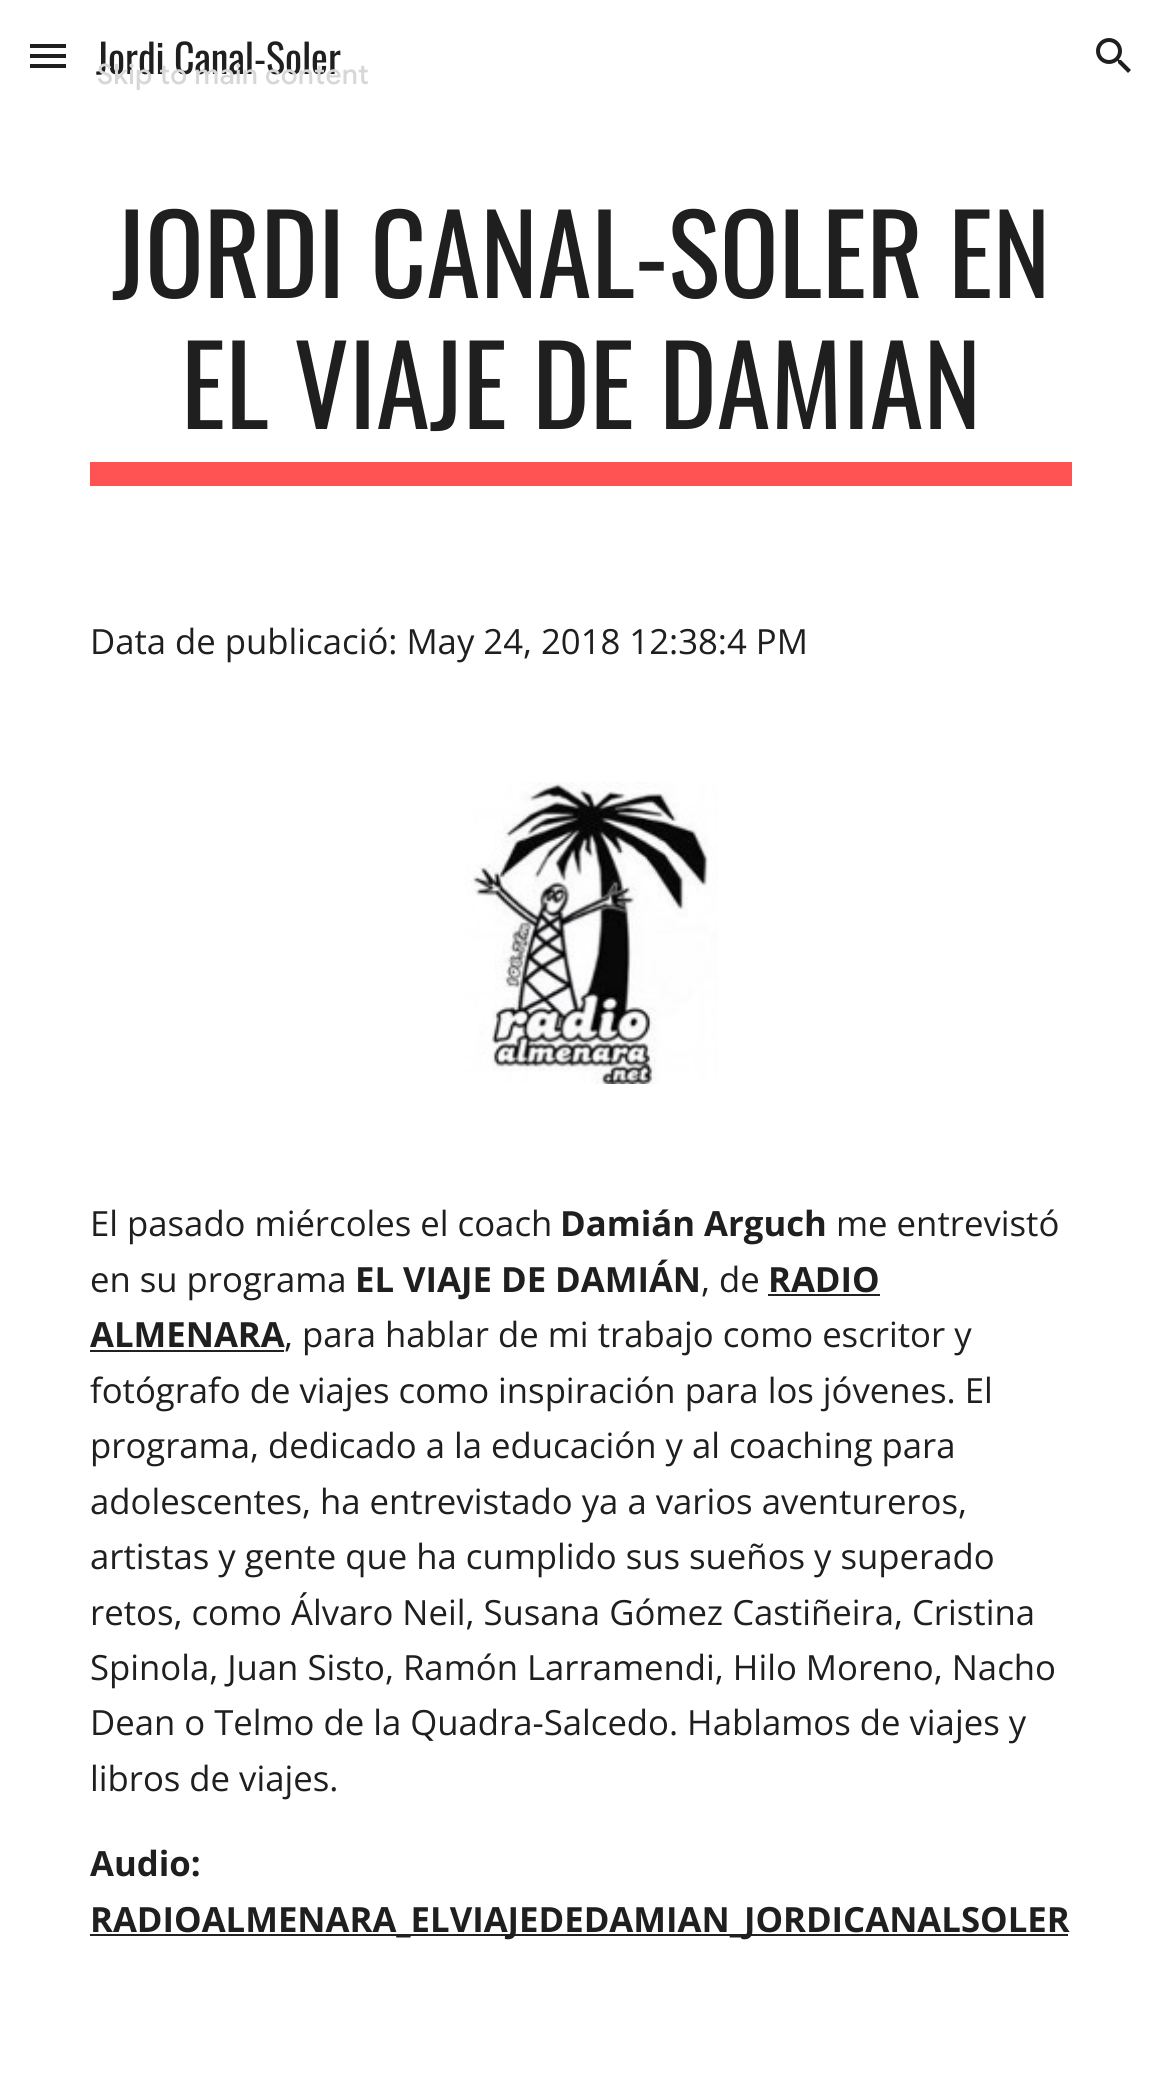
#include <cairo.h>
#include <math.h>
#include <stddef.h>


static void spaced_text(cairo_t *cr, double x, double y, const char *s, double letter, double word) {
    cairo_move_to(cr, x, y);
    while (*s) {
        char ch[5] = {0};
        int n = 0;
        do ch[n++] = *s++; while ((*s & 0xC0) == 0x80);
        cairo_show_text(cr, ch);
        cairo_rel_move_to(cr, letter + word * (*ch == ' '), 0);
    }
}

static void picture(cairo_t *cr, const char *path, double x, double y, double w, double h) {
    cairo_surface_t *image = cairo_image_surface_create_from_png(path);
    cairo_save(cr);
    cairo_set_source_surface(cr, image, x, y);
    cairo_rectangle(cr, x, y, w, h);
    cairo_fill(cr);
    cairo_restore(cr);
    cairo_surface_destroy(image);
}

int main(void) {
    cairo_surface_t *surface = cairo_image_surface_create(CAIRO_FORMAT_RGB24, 1161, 2089);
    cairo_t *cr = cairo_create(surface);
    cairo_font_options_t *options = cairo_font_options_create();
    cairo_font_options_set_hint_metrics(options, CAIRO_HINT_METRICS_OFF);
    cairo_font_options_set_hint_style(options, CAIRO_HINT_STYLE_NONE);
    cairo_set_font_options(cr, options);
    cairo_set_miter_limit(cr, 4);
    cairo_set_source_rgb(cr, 1, 1, 1);
    cairo_paint(cr);
    cairo_set_source_rgb(cr, 0.122, 0.122, 0.122);
    cairo_rectangle(cr, 30, 44, 36, 4);
    cairo_fill(cr);
    cairo_rectangle(cr, 30, 54, 36, 4);
    cairo_fill(cr);
    cairo_rectangle(cr, 30, 64, 36, 4);
    cairo_fill(cr);
    cairo_select_font_face(cr, "Oswald", CAIRO_FONT_SLANT_NORMAL, CAIRO_FONT_WEIGHT_NORMAL);
    cairo_set_font_size(cr, 40);
    cairo_move_to(cr, 96, 74);
    cairo_show_text(cr, "Jordi Canal-Soler");
    picture(cr, "img1.png", 1096, 38, 35, 35);
    cairo_set_font_size(cr, 109.25);
    cairo_move_to(cr, 112, 298);
    cairo_show_text(cr, "JORDI CANAL-SOLER EN");
    cairo_move_to(cr, 181, 429);
    cairo_show_text(cr, "EL VIAJE DE DAMIAN");
    cairo_set_source_rgb(cr, 1, 0.322, 0.322);
    cairo_rectangle(cr, 90, 462, 982, 24);
    cairo_fill(cr);
    cairo_select_font_face(cr, "Open Sans", CAIRO_FONT_SLANT_NORMAL, CAIRO_FONT_WEIGHT_NORMAL);
    cairo_set_font_size(cr, 34.7);
    cairo_set_source_rgb(cr, 0.122, 0.122, 0.122);
    cairo_move_to(cr, 90, 654);
    cairo_show_text(cr, "Data de publicació: May 24, 2018 12:38:4 PM");
    picture(cr, "img2.png", 465, 782, 253, 302);
    cairo_move_to(cr, 90, 1236);
    cairo_show_text(cr, "El pasado miércoles el coach");
    cairo_select_font_face(cr, "Open Sans", CAIRO_FONT_SLANT_NORMAL, CAIRO_FONT_WEIGHT_BOLD);
    cairo_move_to(cr, 560, 1236);
    cairo_show_text(cr, "Damián Arguch");
    cairo_select_font_face(cr, "Open Sans", CAIRO_FONT_SLANT_NORMAL, CAIRO_FONT_WEIGHT_NORMAL);
    cairo_move_to(cr, 836, 1236);
    cairo_show_text(cr, "me entrevistó");
    cairo_move_to(cr, 90, 1292);
    cairo_show_text(cr, "en su programa");
    cairo_select_font_face(cr, "Open Sans", CAIRO_FONT_SLANT_NORMAL, CAIRO_FONT_WEIGHT_BOLD);
    cairo_move_to(cr, 355, 1292);
    cairo_show_text(cr, "EL VIAJE DE DAMIÁN");
    cairo_select_font_face(cr, "Open Sans", CAIRO_FONT_SLANT_NORMAL, CAIRO_FONT_WEIGHT_NORMAL);
    cairo_move_to(cr, 701, 1292);
    cairo_show_text(cr, ", de");
    cairo_select_font_face(cr, "Open Sans", CAIRO_FONT_SLANT_NORMAL, CAIRO_FONT_WEIGHT_BOLD);
    cairo_move_to(cr, 768, 1292);
    cairo_show_text(cr, "RADIO");
    cairo_set_source_rgb(cr, 0.129, 0.129, 0.129);
    cairo_rectangle(cr, 768, 1294, 112, 2);
    cairo_fill(cr);
    cairo_set_source_rgb(cr, 0.122, 0.122, 0.122);
    cairo_move_to(cr, 90, 1347);
    cairo_show_text(cr, "ALMENARA");
    cairo_set_source_rgb(cr, 0.129, 0.129, 0.129);
    cairo_rectangle(cr, 90, 1350, 194, 2);
    cairo_fill(cr);
    cairo_select_font_face(cr, "Open Sans", CAIRO_FONT_SLANT_NORMAL, CAIRO_FONT_WEIGHT_NORMAL);
    cairo_set_source_rgb(cr, 0.122, 0.122, 0.122);
    cairo_move_to(cr, 284, 1347);
    cairo_show_text(cr, ", para hablar de mi trabajo como escritor y");
    cairo_move_to(cr, 90, 1403);
    cairo_show_text(cr, "fotógrafo de viajes como inspiración para los jóvenes. El");
    cairo_move_to(cr, 90, 1458);
    cairo_show_text(cr, "programa, dedicado a la educación y al coaching para");
    cairo_move_to(cr, 90, 1514);
    cairo_show_text(cr, "adolescentes, ha entrevistado ya a varios aventureros,");
    cairo_move_to(cr, 90, 1569);
    cairo_show_text(cr, "artistas y gente que ha cumplido sus sueños y superado");
    cairo_move_to(cr, 90, 1625);
    cairo_show_text(cr, "retos, como Álvaro Neil, Susana Gómez Castiñeira, Cristina");
    cairo_move_to(cr, 90, 1680);
    cairo_show_text(cr, "Spinola, Juan Sisto, Ramón Larramendi, Hilo Moreno, Nacho");
    cairo_move_to(cr, 90, 1735);
    cairo_show_text(cr, "Dean o Telmo de la Quadra-Salcedo. Hablamos de viajes y");
    cairo_move_to(cr, 90, 1791);
    cairo_show_text(cr, "libros de viajes.");
    cairo_select_font_face(cr, "Open Sans", CAIRO_FONT_SLANT_NORMAL, CAIRO_FONT_WEIGHT_BOLD);
    cairo_move_to(cr, 90, 1876);
    cairo_show_text(cr, "Audio:");
    cairo_set_source_rgb(cr, 0.129, 0.129, 0.129);
    cairo_rectangle(cr, 90, 1934, 978, 2);
    cairo_fill(cr);
    cairo_set_source_rgb(cr, 0.122, 0.122, 0.122);
    cairo_move_to(cr, 90, 1932);
    cairo_show_text(cr, "RADIOALMENARA_ELVIAJEDEDAMIAN_JORDICANALSOLER");
    cairo_select_font_face(cr, "Google Sans Medium", CAIRO_FONT_SLANT_NORMAL, CAIRO_FONT_WEIGHT_NORMAL);
    cairo_set_font_size(cr, 28);
    cairo_set_source_rgb(cr, 0.843, 0.843, 0.843);
    spaced_text(cr, 97, 84, "Skip to main content", 0.25, 0);
    cairo_surface_write_to_png(surface, "page.png");
    cairo_font_options_destroy(options);
    cairo_destroy(cr);
    cairo_surface_destroy(surface);
    return 0;
}
